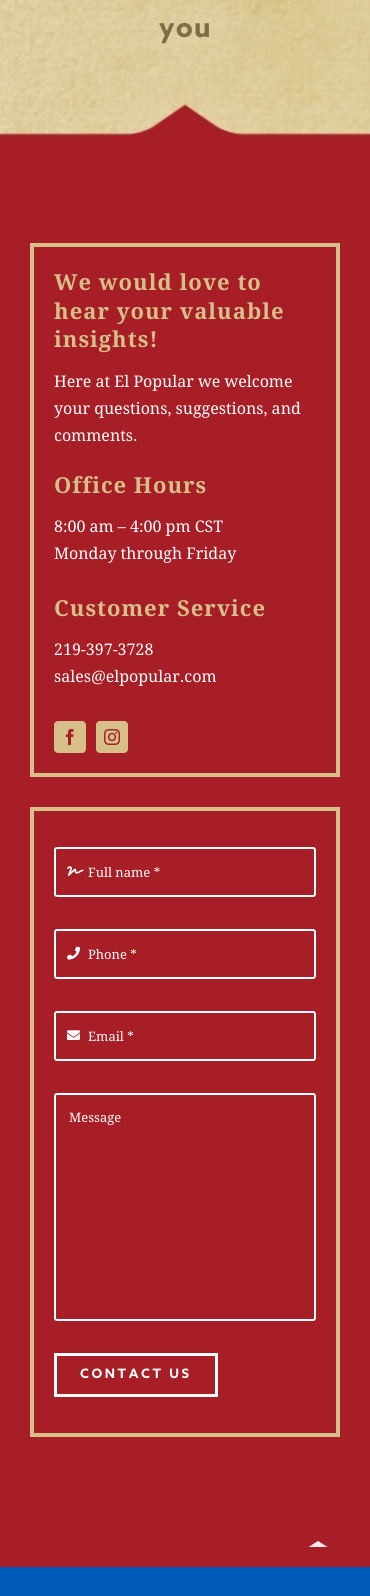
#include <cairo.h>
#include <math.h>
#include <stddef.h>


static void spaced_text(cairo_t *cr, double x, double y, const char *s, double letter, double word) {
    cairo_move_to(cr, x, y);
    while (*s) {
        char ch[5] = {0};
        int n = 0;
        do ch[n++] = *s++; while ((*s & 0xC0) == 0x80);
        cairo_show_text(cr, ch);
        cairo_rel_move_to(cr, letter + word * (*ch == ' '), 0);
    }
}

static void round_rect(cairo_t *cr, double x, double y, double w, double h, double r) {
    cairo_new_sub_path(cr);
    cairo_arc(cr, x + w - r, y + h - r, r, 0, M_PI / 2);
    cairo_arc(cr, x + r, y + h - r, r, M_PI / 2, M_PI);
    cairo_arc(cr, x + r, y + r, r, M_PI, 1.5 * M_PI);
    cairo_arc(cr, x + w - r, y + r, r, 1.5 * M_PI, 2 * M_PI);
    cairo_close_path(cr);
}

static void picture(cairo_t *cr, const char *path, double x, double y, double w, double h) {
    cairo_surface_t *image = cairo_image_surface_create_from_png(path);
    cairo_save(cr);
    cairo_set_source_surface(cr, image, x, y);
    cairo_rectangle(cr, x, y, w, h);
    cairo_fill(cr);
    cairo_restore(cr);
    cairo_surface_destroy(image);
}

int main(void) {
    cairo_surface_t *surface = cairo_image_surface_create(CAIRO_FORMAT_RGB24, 370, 1596);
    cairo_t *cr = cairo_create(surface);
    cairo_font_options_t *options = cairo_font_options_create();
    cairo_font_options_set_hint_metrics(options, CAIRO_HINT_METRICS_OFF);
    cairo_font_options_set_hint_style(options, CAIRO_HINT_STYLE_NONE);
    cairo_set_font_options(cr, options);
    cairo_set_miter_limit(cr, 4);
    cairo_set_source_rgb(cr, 0, 0.361, 0.722);
    cairo_paint(cr);
    picture(cr, "img1.png", 0, 0, 370, 153);
    cairo_select_font_face(cr, "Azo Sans", CAIRO_FONT_SLANT_NORMAL, CAIRO_FONT_WEIGHT_BOLD);
    cairo_set_font_size(cr, 28);
    cairo_set_source_rgb(cr, 0.506, 0.424, 0.29);
    spaced_text(cr, 159, 37, "you", 1, 0);
    cairo_set_source_rgb(cr, 0.655, 0.118, 0.149);
    cairo_rectangle(cr, 0, 153, 370, 1414);
    cairo_fill(cr);
    cairo_rectangle(cr, 32, 245, 306, 530);
    cairo_set_source_rgb(cr, 0.843, 0.749, 0.541);
    cairo_set_line_width(cr, 4);
    cairo_stroke(cr);
    cairo_select_font_face(cr, "Noto Serif", CAIRO_FONT_SLANT_NORMAL, CAIRO_FONT_WEIGHT_BOLD);
    cairo_set_font_size(cr, 22);
    spaced_text(cr, 54, 290, "We would love to", 1, 0);
    spaced_text(cr, 54, 319, "hear your valuable", 1, 0);
    spaced_text(cr, 54, 347, "insights!", 1, 0);
    cairo_select_font_face(cr, "Droid Serif", CAIRO_FONT_SLANT_NORMAL, CAIRO_FONT_WEIGHT_NORMAL);
    cairo_set_font_size(cr, 16);
    cairo_set_source_rgb(cr, 1, 1, 1);
    cairo_move_to(cr, 54, 387);
    cairo_show_text(cr, "Here at El Popular we welcome");
    cairo_move_to(cr, 54, 414);
    cairo_show_text(cr, "your questions, suggestions, and");
    cairo_move_to(cr, 54, 441);
    cairo_show_text(cr, "comments.");
    cairo_select_font_face(cr, "Noto Serif", CAIRO_FONT_SLANT_NORMAL, CAIRO_FONT_WEIGHT_BOLD);
    cairo_set_font_size(cr, 22);
    cairo_set_source_rgb(cr, 0.843, 0.749, 0.541);
    spaced_text(cr, 54, 493, "Office Hours", 1, 0);
    cairo_select_font_face(cr, "Droid Serif", CAIRO_FONT_SLANT_NORMAL, CAIRO_FONT_WEIGHT_NORMAL);
    cairo_set_font_size(cr, 16);
    cairo_set_source_rgb(cr, 1, 1, 1);
    cairo_move_to(cr, 54, 532);
    cairo_show_text(cr, "8:00 am – 4:00 pm CST");
    cairo_move_to(cr, 54, 559);
    cairo_show_text(cr, "Monday through Friday");
    cairo_select_font_face(cr, "Noto Serif", CAIRO_FONT_SLANT_NORMAL, CAIRO_FONT_WEIGHT_BOLD);
    cairo_set_font_size(cr, 22);
    cairo_set_source_rgb(cr, 0.843, 0.749, 0.541);
    spaced_text(cr, 54, 616, "Customer Service", 1, 0);
    cairo_select_font_face(cr, "Droid Serif", CAIRO_FONT_SLANT_NORMAL, CAIRO_FONT_WEIGHT_NORMAL);
    cairo_set_font_size(cr, 16);
    cairo_set_source_rgb(cr, 1, 1, 1);
    cairo_move_to(cr, 54, 655);
    cairo_show_text(cr, "219-397-3728");
    cairo_move_to(cr, 54, 682);
    cairo_show_text(cr, "sales@elpopular.com");
    cairo_set_source_rgb(cr, 0.843, 0.749, 0.541);
    round_rect(cr, 54, 721, 32, 32, 4);
    cairo_fill(cr);
    picture(cr, "img2.png", 66, 729, 8, 16);
    round_rect(cr, 96, 721, 32, 32, 4);
    cairo_fill(cr);
    picture(cr, "img3.png", 104, 729, 16, 16);
    cairo_rectangle(cr, 32, 809, 306, 626);
    cairo_stroke(cr);
    round_rect(cr, 55, 848, 260, 48, 2);
    cairo_set_source_rgb(cr, 1, 1, 1);
    cairo_set_line_width(cr, 2);
    cairo_stroke(cr);
    picture(cr, "img4.png", 67, 866, 17, 10);
    cairo_set_font_size(cr, 13);
    cairo_move_to(cr, 88, 877);
    cairo_show_text(cr, "Full name *");
    round_rect(cr, 55, 930, 260, 48, 2);
    cairo_stroke(cr);
    picture(cr, "img5.png", 67, 946, 13, 14);
    cairo_move_to(cr, 88, 959);
    cairo_show_text(cr, "Phone *");
    round_rect(cr, 55, 1012, 260, 48, 2);
    cairo_stroke(cr);
    picture(cr, "img6.png", 67, 1030, 13, 10);
    cairo_move_to(cr, 88, 1041);
    cairo_show_text(cr, "Email *");
    round_rect(cr, 55, 1094, 260, 226, 2);
    cairo_stroke(cr);
    cairo_move_to(cr, 69, 1122);
    cairo_show_text(cr, "Message");
    cairo_rectangle(cr, 55.5, 1354.5, 161, 41);
    cairo_set_line_width(cr, 3);
    cairo_stroke(cr);
    cairo_select_font_face(cr, "Azo Sans", CAIRO_FONT_SLANT_NORMAL, CAIRO_FONT_WEIGHT_BOLD);
    spaced_text(cr, 80, 1378, "CONTACT US", 2.6, 0);
    cairo_set_source_rgb(cr, 0.965, 0.914, 0.914);
    cairo_new_path(cr);
    cairo_move_to(cr, 318, 1541);
    cairo_line_to(cr, 308.5, 1547);
    cairo_line_to(cr, 327.5, 1547);
    cairo_close_path(cr);
    cairo_fill(cr);
    cairo_surface_write_to_png(surface, "page.png");
    cairo_font_options_destroy(options);
    cairo_destroy(cr);
    cairo_surface_destroy(surface);
    return 0;
}
